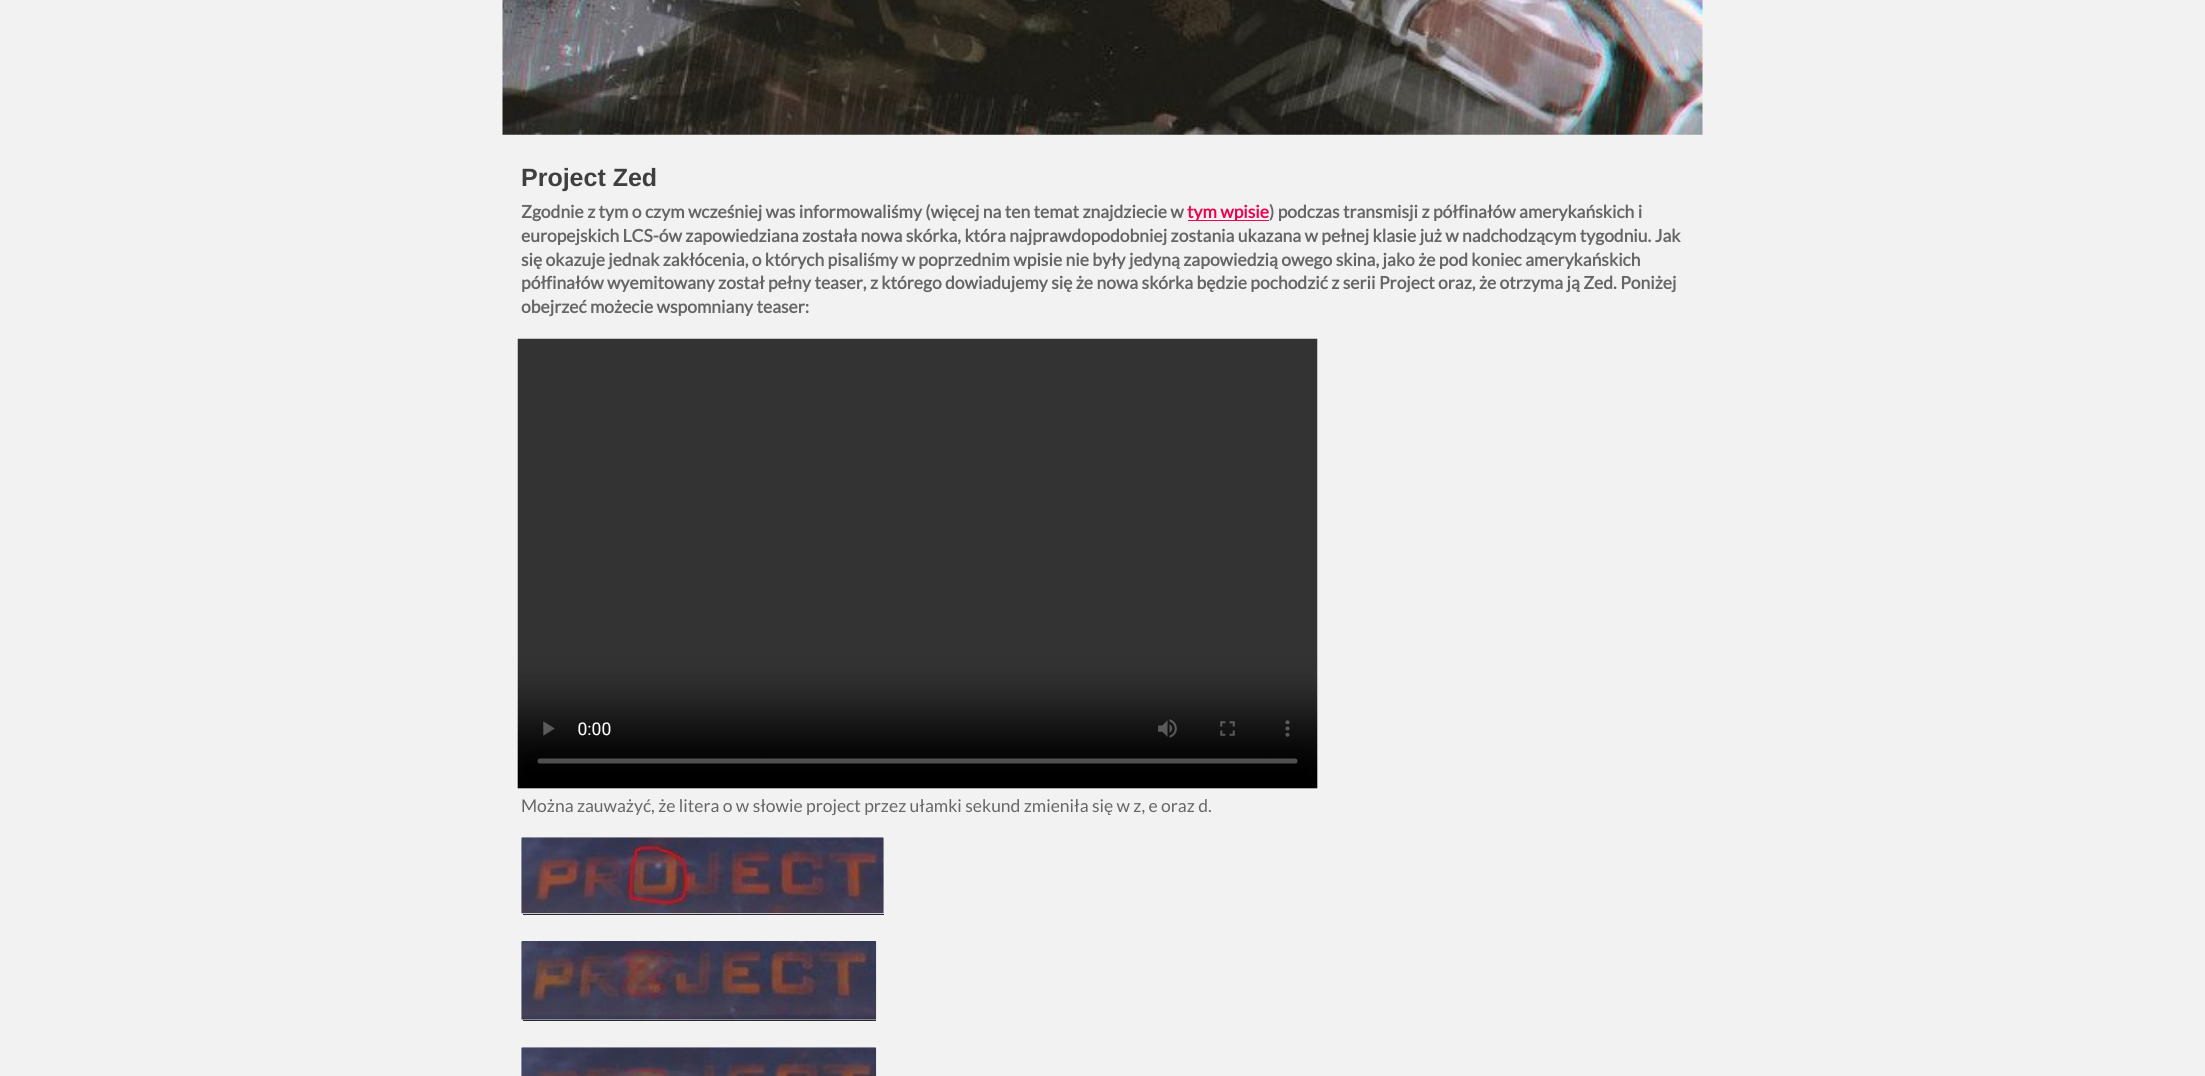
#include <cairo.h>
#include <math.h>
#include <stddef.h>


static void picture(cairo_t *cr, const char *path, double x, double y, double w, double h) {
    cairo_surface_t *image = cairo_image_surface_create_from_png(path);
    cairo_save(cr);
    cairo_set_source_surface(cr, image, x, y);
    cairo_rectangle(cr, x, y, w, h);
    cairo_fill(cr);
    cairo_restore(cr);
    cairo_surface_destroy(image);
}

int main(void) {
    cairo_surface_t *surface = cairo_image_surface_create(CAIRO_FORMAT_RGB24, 2205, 1076);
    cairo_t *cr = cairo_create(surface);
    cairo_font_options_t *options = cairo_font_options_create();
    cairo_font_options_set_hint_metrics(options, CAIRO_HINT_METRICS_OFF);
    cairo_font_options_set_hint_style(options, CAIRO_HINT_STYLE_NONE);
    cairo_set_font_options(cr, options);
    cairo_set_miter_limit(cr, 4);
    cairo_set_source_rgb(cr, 0.949, 0.949, 0.949);
    cairo_paint(cr);
    picture(cr, "img1.png", 502, 0, 1201, 135);
    cairo_select_font_face(cr, "Liberation Sans", CAIRO_FONT_SLANT_NORMAL, CAIRO_FONT_WEIGHT_BOLD);
    cairo_set_font_size(cr, 25);
    cairo_set_source_rgb(cr, 0.251, 0.247, 0.247);
    cairo_move_to(cr, 521, 186);
    cairo_show_text(cr, "Project Zed");
    cairo_select_font_face(cr, "Lato", CAIRO_FONT_SLANT_NORMAL, CAIRO_FONT_WEIGHT_BOLD);
    cairo_set_font_size(cr, 17.5);
    cairo_set_source_rgb(cr, 0.4, 0.4, 0.4);
    cairo_move_to(cr, 521, 218);
    cairo_show_text(cr, "Zgodnie z tym o czym wcześniej was informowaliśmy (więcej na ten temat znajdziecie w");
    cairo_set_source_rgb(cr, 0.941, 0, 0.298);
    cairo_rectangle(cr, 1188, 220, 81, 1);
    cairo_fill(cr);
    cairo_move_to(cr, 1187, 218);
    cairo_show_text(cr, "tym wpisie");
    cairo_set_source_rgb(cr, 0.4, 0.4, 0.4);
    cairo_move_to(cr, 1269, 218);
    cairo_show_text(cr, ") podczas transmisji z półfinałów amerykańskich i");
    cairo_move_to(cr, 521, 242);
    cairo_show_text(cr, "europejskich LCS-ów zapowiedziana została nowa skórka, która najprawdopodobniej zostania ukazana w pełnej klasie już w nadchodzącym tygodniu. Jak");
    cairo_move_to(cr, 521, 266);
    cairo_show_text(cr, "się okazuje jednak zakłócenia, o których pisaliśmy w poprzednim wpisie nie były jedyną zapowiedzią owego skina, jako że pod koniec amerykańskich");
    cairo_move_to(cr, 521, 289);
    cairo_show_text(cr, "półfinałów wyemitowany został pełny teaser, z którego dowiadujemy się że nowa skórka będzie pochodzić z serii Project oraz, że otrzyma ją Zed. Poniżej");
    cairo_move_to(cr, 521, 313);
    cairo_show_text(cr, "obejrzeć możecie wspomniany teaser:");
    picture(cr, "img2.png", 517, 338, 801, 451);
    cairo_select_font_face(cr, "Lato", CAIRO_FONT_SLANT_NORMAL, CAIRO_FONT_WEIGHT_NORMAL);
    cairo_move_to(cr, 521, 812);
    cairo_show_text(cr, "Można zauważyć, że litera o w słowie project przez ułamki sekund zmieniła się w z, e oraz d.");
    picture(cr, "img3.png", 521, 837, 363, 77);
    cairo_set_source_rgb(cr, 0.165, 0.165, 0.165);
    cairo_rectangle(cr, 523, 914, 361, 1);
    cairo_fill(cr);
    picture(cr, "img4.png", 521, 941, 356, 79);
    cairo_rectangle(cr, 523, 1020, 353, 1);
    cairo_fill(cr);
    picture(cr, "img5.png", 521, 1047, 356, 29);
    cairo_surface_write_to_png(surface, "page.png");
    cairo_font_options_destroy(options);
    cairo_destroy(cr);
    cairo_surface_destroy(surface);
    return 0;
}
